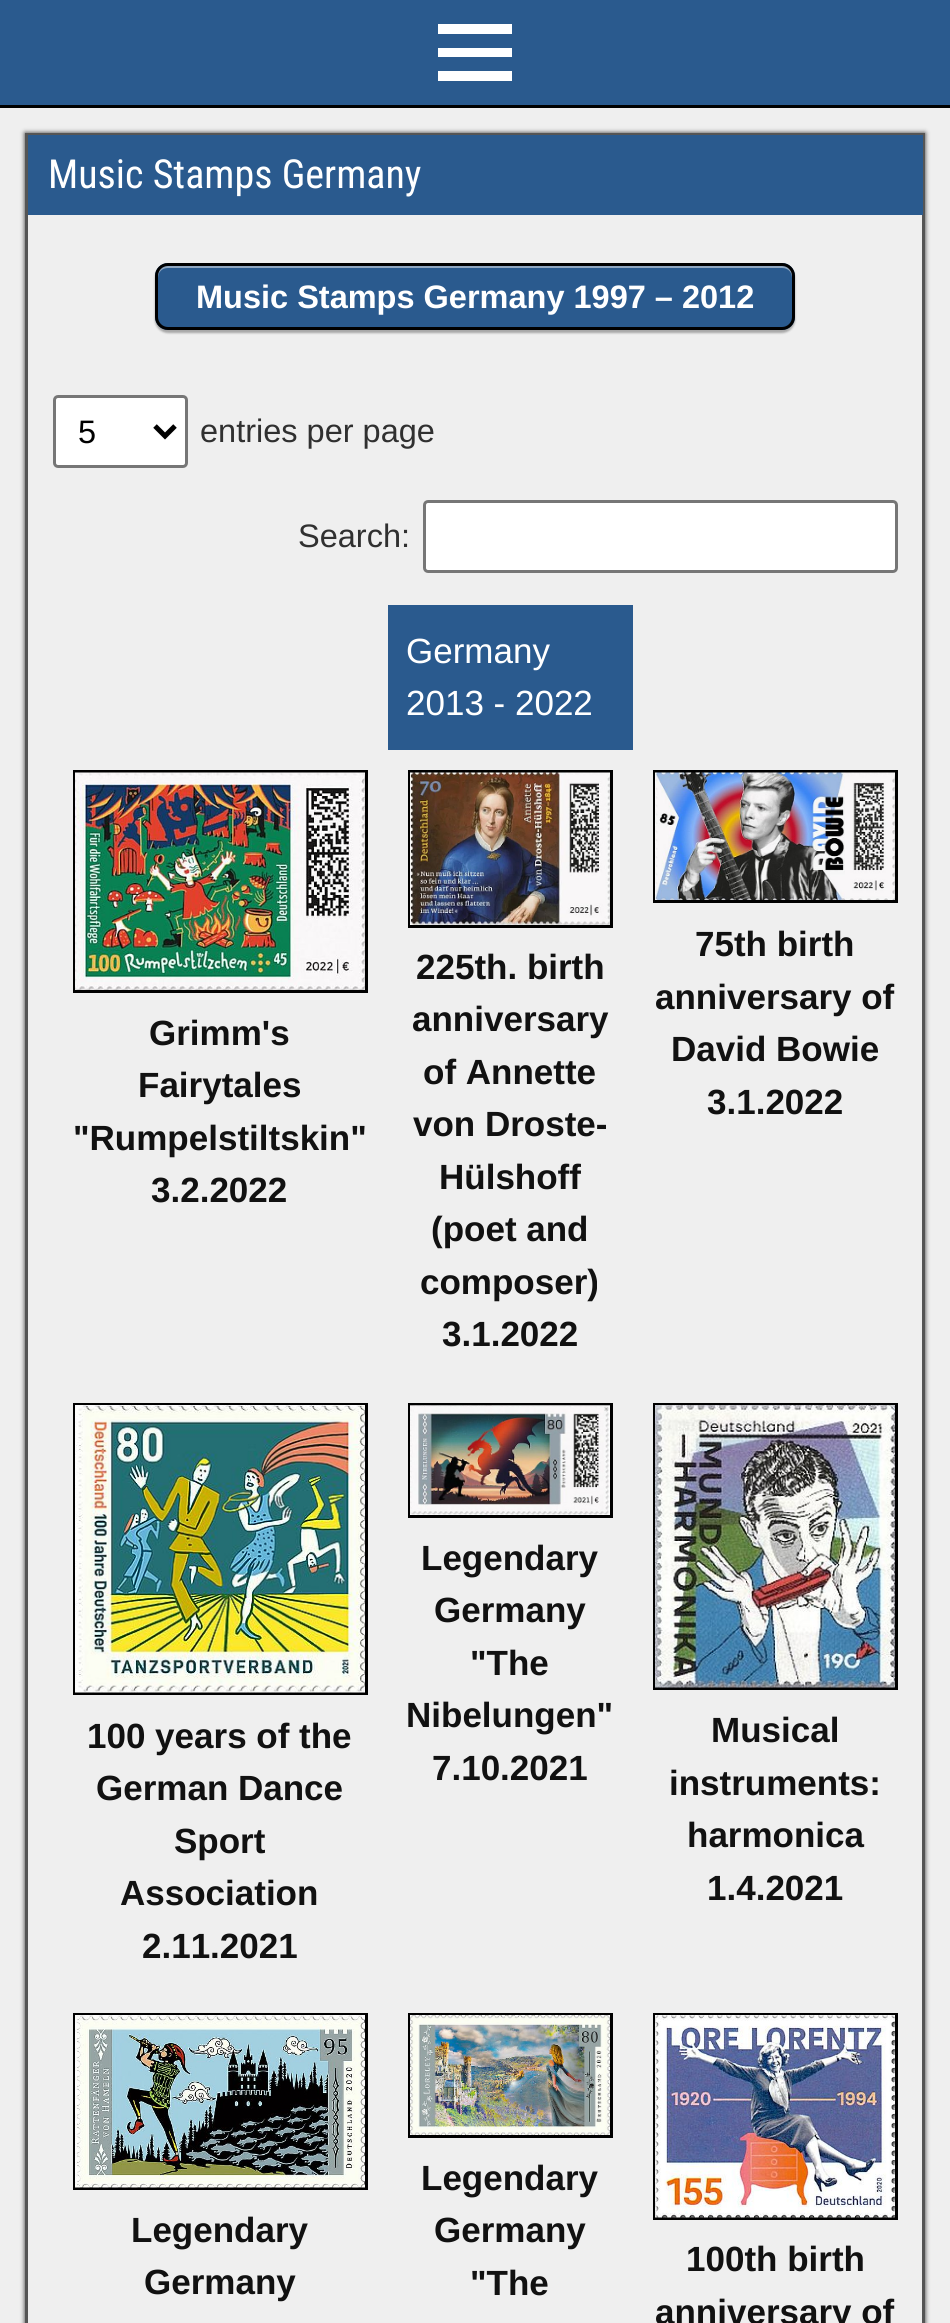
#include <cairo.h>
#include <math.h>
#include <stddef.h>


static void round_rect(cairo_t *cr, double x, double y, double w, double h, double r) {
    cairo_new_sub_path(cr);
    cairo_arc(cr, x + w - r, y + h - r, r, 0, M_PI / 2);
    cairo_arc(cr, x + r, y + h - r, r, M_PI / 2, M_PI);
    cairo_arc(cr, x + r, y + r, r, M_PI, 1.5 * M_PI);
    cairo_arc(cr, x + w - r, y + r, r, 1.5 * M_PI, 2 * M_PI);
    cairo_close_path(cr);
}

static void shadow(cairo_t *cr, double x, double y, double w, double h, double r, double blur, double alpha) {
    cairo_push_group_with_content(cr, CAIRO_CONTENT_ALPHA);
    cairo_set_operator(cr, CAIRO_OPERATOR_SOURCE);
    for (int i = 15; i >= -15 && fmin(w, h) + blur * i / 3 > 0; i -= 2) {
        double e = blur * i / 6;
        cairo_set_source_rgba(cr, 0, 0, 0, alpha * erfc((i - 1) / 8.5) / 2);
        round_rect(cr, x - e, y - e, w + 2 * e, h + 2 * e, fmax(0, fmin(r + e + blur * .6, fmin(w, h) / 2 + e)));
        cairo_fill(cr);
    }
    cairo_pattern_t *soft = cairo_pop_group(cr);
    cairo_mask(cr, soft);
    cairo_pattern_destroy(soft);
}

static void picture(cairo_t *cr, const char *path, double x, double y, double w, double h) {
    cairo_surface_t *image = cairo_image_surface_create_from_png(path);
    cairo_save(cr);
    cairo_set_source_surface(cr, image, x, y);
    cairo_rectangle(cr, x, y, w, h);
    cairo_fill(cr);
    cairo_restore(cr);
    cairo_surface_destroy(image);
}

int main(void) {
    cairo_surface_t *surface = cairo_image_surface_create(CAIRO_FORMAT_RGB24, 950, 2323);
    cairo_t *cr = cairo_create(surface);
    cairo_font_options_t *options = cairo_font_options_create();
    cairo_font_options_set_hint_metrics(options, CAIRO_HINT_METRICS_OFF);
    cairo_font_options_set_hint_style(options, CAIRO_HINT_STYLE_NONE);
    cairo_set_font_options(cr, options);
    cairo_set_miter_limit(cr, 4);
    cairo_set_source_rgb(cr, 0.937, 0.937, 0.937);
    cairo_paint(cr);
    cairo_set_source_rgb(cr, 0.165, 0.353, 0.557);
    cairo_rectangle(cr, 0, 0, 950, 105);
    cairo_fill(cr);
    cairo_set_source_rgb(cr, 0, 0, 0);
    cairo_rectangle(cr, 0, 105, 950, 3);
    cairo_fill(cr);
    cairo_set_source_rgb(cr, 1, 1, 1);
    cairo_new_path(cr);
    cairo_move_to(cr, 438, 81);
    cairo_line_to(cr, 438, 71);
    cairo_line_to(cr, 512, 71);
    cairo_line_to(cr, 512, 81);
    cairo_close_path(cr);
    cairo_move_to(cr, 438, 24);
    cairo_line_to(cr, 512, 24);
    cairo_line_to(cr, 512, 34);
    cairo_line_to(cr, 438, 34);
    cairo_close_path(cr);
    cairo_move_to(cr, 438, 57);
    cairo_line_to(cr, 438, 48);
    cairo_line_to(cr, 512, 48);
    cairo_line_to(cr, 512, 57);
    cairo_close_path(cr);
    cairo_fill(cr);
    cairo_save(cr);
    cairo_set_fill_rule(cr, CAIRO_FILL_RULE_EVEN_ODD);
    cairo_new_path(cr);
    cairo_move_to(cr, 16, 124);
    cairo_line_to(cr, 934, 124);
    cairo_line_to(cr, 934, 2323);
    cairo_line_to(cr, 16, 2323);
    cairo_close_path(cr);
    cairo_move_to(cr, 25, 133);
    cairo_line_to(cr, 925, 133);
    cairo_line_to(cr, 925, 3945);
    cairo_line_to(cr, 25, 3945);
    cairo_close_path(cr);
    cairo_clip(cr);
    cairo_set_source_rgb(cr, 0.2, 0.2, 0.2);
    shadow(cr, 25, 133, 900, 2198, 0, 2.5, 1);
    cairo_restore(cr);
    cairo_rectangle(cr, 26.5, 134.5, 897, 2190);
    cairo_set_source_rgb(cr, 0.333, 0.333, 0.333);
    cairo_set_line_width(cr, 3);
    cairo_stroke(cr);
    cairo_set_source_rgb(cr, 0.165, 0.353, 0.557);
    cairo_rectangle(cr, 28, 135, 895, 80);
    cairo_fill(cr);
    cairo_select_font_face(cr, "Roboto Condensed", CAIRO_FONT_SLANT_NORMAL, CAIRO_FONT_WEIGHT_NORMAL);
    cairo_set_font_size(cr, 40);
    cairo_set_source_rgb(cr, 1, 1, 1);
    cairo_move_to(cr, 48, 188);
    cairo_show_text(cr, "Music Stamps Germany");
    cairo_set_source_rgb(cr, 0, 0, 0);
    shadow(cr, 155, 265, 640, 68, 13, 1, 0.3);
    cairo_set_source_rgb(cr, 0.165, 0.353, 0.557);
    round_rect(cr, 155, 263, 640, 67, 13);
    cairo_fill(cr);
    cairo_set_source_rgb(cr, 0.565, 0.659, 0.761);
    cairo_new_path(cr);
    cairo_move_to(cr, 168, 268);
    cairo_line_to(cr, 782, 268);
    cairo_curve_to(cr, 788, 268, 792, 272, 792, 278);
    cairo_line_to(cr, 792, 320);
    cairo_line_to(cr, 792, 323);
    cairo_curve_to(cr, 792, 322, 793, 320, 793, 318);
    cairo_line_to(cr, 793, 275);
    cairo_curve_to(cr, 793, 269, 789, 265, 783, 265);
    cairo_line_to(cr, 168, 265);
    cairo_curve_to(cr, 162, 265, 158, 269, 158, 275);
    cairo_line_to(cr, 158, 278);
    cairo_curve_to(cr, 158, 272, 162, 268, 168, 268);
    cairo_close_path(cr);
    cairo_fill(cr);
    round_rect(cr, 156.5, 264.5, 637, 64, 11.5);
    cairo_set_source_rgb(cr, 0, 0, 0);
    cairo_stroke(cr);
    cairo_select_font_face(cr, "Arimo", CAIRO_FONT_SLANT_NORMAL, CAIRO_FONT_WEIGHT_BOLD);
    cairo_set_font_size(cr, 32.5);
    cairo_set_source_rgb(cr, 1, 1, 1);
    cairo_move_to(cr, 196, 308);
    cairo_show_text(cr, "Music Stamps Germany 1997 – 2012");
    round_rect(cr, 54.5, 396.5, 132, 70, 3.5);
    cairo_fill_preserve(cr);
    cairo_set_source_rgb(cr, 0.463, 0.463, 0.463);
    cairo_stroke(cr);
    cairo_new_path(cr);
    cairo_move_to(cr, 155, 426);
    cairo_line_to(cr, 165, 436);
    cairo_line_to(cr, 175, 426);
    cairo_set_source_rgb(cr, 0, 0, 0);
    cairo_set_line_width(cr, 5);
    cairo_stroke(cr);
    cairo_select_font_face(cr, "Liberation Sans", CAIRO_FONT_SLANT_NORMAL, CAIRO_FONT_WEIGHT_NORMAL);
    cairo_move_to(cr, 78, 443);
    cairo_show_text(cr, "5");
    cairo_select_font_face(cr, "Arimo", CAIRO_FONT_SLANT_NORMAL, CAIRO_FONT_WEIGHT_NORMAL);
    cairo_set_source_rgb(cr, 0.188, 0.188, 0.188);
    cairo_move_to(cr, 200, 442);
    cairo_show_text(cr, "entries per page");
    cairo_move_to(cr, 298, 547);
    cairo_show_text(cr, "Search:");
    cairo_set_source_rgb(cr, 1, 1, 1);
    round_rect(cr, 424.5, 501.5, 472, 70, 3.5);
    cairo_fill_preserve(cr);
    cairo_set_source_rgb(cr, 0.463, 0.463, 0.463);
    cairo_set_line_width(cr, 3);
    cairo_stroke(cr);
    cairo_set_source_rgb(cr, 0.165, 0.353, 0.557);
    cairo_rectangle(cr, 388, 605, 245, 145);
    cairo_fill(cr);
    cairo_set_font_size(cr, 35);
    cairo_set_source_rgb(cr, 1, 1, 1);
    cairo_move_to(cr, 406, 663);
    cairo_show_text(cr, "Germany");
    cairo_move_to(cr, 406, 715);
    cairo_show_text(cr, "2013 - 2022");
    cairo_rectangle(cr, 74.5, 771.5, 292, 220);
    cairo_set_source_rgb(cr, 0, 0, 0);
    cairo_stroke(cr);
    picture(cr, "img1.png", 75, 772, 290, 218);
    cairo_select_font_face(cr, "Arimo", CAIRO_FONT_SLANT_NORMAL, CAIRO_FONT_WEIGHT_BOLD);
    cairo_set_source_rgb(cr, 0.067, 0.067, 0.067);
    cairo_move_to(cr, 149, 1045);
    cairo_show_text(cr, "Grimm's");
    cairo_move_to(cr, 138, 1097);
    cairo_show_text(cr, "Fairytales");
    cairo_move_to(cr, 73, 1150);
    cairo_show_text(cr, "\"Rumpelstiltskin\"");
    cairo_move_to(cr, 151, 1202);
    cairo_show_text(cr, "3.2.2022");
    cairo_rectangle(cr, 409.5, 771.5, 202, 155);
    cairo_set_source_rgb(cr, 0, 0, 0);
    cairo_stroke(cr);
    picture(cr, "img2.png", 410, 772, 200, 153);
    cairo_set_source_rgb(cr, 0.067, 0.067, 0.067);
    cairo_move_to(cr, 416, 979);
    cairo_show_text(cr, "225th. birth");
    cairo_move_to(cr, 412, 1031);
    cairo_show_text(cr, "anniversary");
    cairo_move_to(cr, 423, 1084);
    cairo_show_text(cr, "of Annette");
    cairo_move_to(cr, 413, 1136);
    cairo_show_text(cr, "von Droste-");
    cairo_move_to(cr, 439, 1189);
    cairo_show_text(cr, "Hülshoff");
    cairo_move_to(cr, 431, 1241);
    cairo_show_text(cr, "(poet and");
    cairo_move_to(cr, 420, 1294);
    cairo_show_text(cr, "composer)");
    cairo_move_to(cr, 442, 1346);
    cairo_show_text(cr, "3.1.2022");
    cairo_rectangle(cr, 654.5, 771.5, 242, 130);
    cairo_set_source_rgb(cr, 0, 0, 0);
    cairo_stroke(cr);
    picture(cr, "img3.png", 655, 772, 240, 128);
    cairo_set_source_rgb(cr, 0.067, 0.067, 0.067);
    cairo_move_to(cr, 695, 956);
    cairo_show_text(cr, "75th birth");
    cairo_move_to(cr, 655, 1009);
    cairo_show_text(cr, "anniversary of");
    cairo_move_to(cr, 671, 1061);
    cairo_show_text(cr, "David Bowie");
    cairo_move_to(cr, 707, 1114);
    cairo_show_text(cr, "3.1.2022");
    cairo_rectangle(cr, 409.5, 1404.5, 202, 112);
    cairo_set_source_rgb(cr, 0, 0, 0);
    cairo_stroke(cr);
    picture(cr, "img4.png", 410, 1405, 200, 110);
    cairo_set_source_rgb(cr, 0.067, 0.067, 0.067);
    cairo_move_to(cr, 421, 1570);
    cairo_show_text(cr, "Legendary");
    cairo_move_to(cr, 434, 1622);
    cairo_show_text(cr, "Germany");
    cairo_move_to(cr, 470, 1675);
    cairo_show_text(cr, "\"The");
    cairo_move_to(cr, 406, 1727);
    cairo_show_text(cr, "Nibelungen\"");
    cairo_move_to(cr, 432, 1780);
    cairo_show_text(cr, "7.10.2021");
    cairo_rectangle(cr, 74.5, 1404.5, 292, 289);
    cairo_set_source_rgb(cr, 0, 0, 0);
    cairo_stroke(cr);
    picture(cr, "img5.png", 75, 1405, 290, 288);
    cairo_set_source_rgb(cr, 0.067, 0.067, 0.067);
    cairo_move_to(cr, 87, 1748);
    cairo_show_text(cr, "100 years of the");
    cairo_move_to(cr, 96, 1800);
    cairo_show_text(cr, "German Dance");
    cairo_move_to(cr, 174, 1853);
    cairo_show_text(cr, "Sport");
    cairo_move_to(cr, 120, 1905);
    cairo_show_text(cr, "Association");
    cairo_move_to(cr, 142, 1958);
    cairo_show_text(cr, "2.11.2021");
    cairo_rectangle(cr, 654.5, 1404.5, 242, 284);
    cairo_set_source_rgb(cr, 0, 0, 0);
    cairo_stroke(cr);
    picture(cr, "img6.png", 655, 1405, 240, 283);
    cairo_set_source_rgb(cr, 0.067, 0.067, 0.067);
    cairo_move_to(cr, 711, 1742);
    cairo_show_text(cr, "Musical");
    cairo_move_to(cr, 669, 1795);
    cairo_show_text(cr, "instruments:");
    cairo_move_to(cr, 687, 1847);
    cairo_show_text(cr, "harmonica");
    cairo_move_to(cr, 707, 1900);
    cairo_show_text(cr, "1.4.2021");
    cairo_rectangle(cr, 74.5, 2014.5, 292, 174);
    cairo_set_source_rgb(cr, 0, 0, 0);
    cairo_stroke(cr);
    picture(cr, "img7.png", 75, 2015, 290, 173);
    cairo_set_source_rgb(cr, 0.067, 0.067, 0.067);
    cairo_move_to(cr, 131, 2242);
    cairo_show_text(cr, "Legendary");
    cairo_move_to(cr, 144, 2294);
    cairo_show_text(cr, "Germany");
    cairo_rectangle(cr, 409.5, 2014.5, 202, 122);
    cairo_set_source_rgb(cr, 0, 0, 0);
    cairo_stroke(cr);
    picture(cr, "img8.png", 410, 2015, 200, 120);
    cairo_set_source_rgb(cr, 0.067, 0.067, 0.067);
    cairo_move_to(cr, 421, 2190);
    cairo_show_text(cr, "Legendary");
    cairo_move_to(cr, 434, 2242);
    cairo_show_text(cr, "Germany");
    cairo_move_to(cr, 470, 2295);
    cairo_show_text(cr, "\"The");
    cairo_rectangle(cr, 654.5, 2014.5, 242, 204);
    cairo_set_source_rgb(cr, 0, 0, 0);
    cairo_stroke(cr);
    picture(cr, "img9.png", 655, 2015, 240, 203);
    cairo_set_source_rgb(cr, 0.067, 0.067, 0.067);
    cairo_move_to(cr, 686, 2271);
    cairo_show_text(cr, "100th birth");
    cairo_move_to(cr, 655, 2324);
    cairo_show_text(cr, "anniversary of");
    cairo_surface_write_to_png(surface, "page.png");
    cairo_font_options_destroy(options);
    cairo_destroy(cr);
    cairo_surface_destroy(surface);
    return 0;
}
